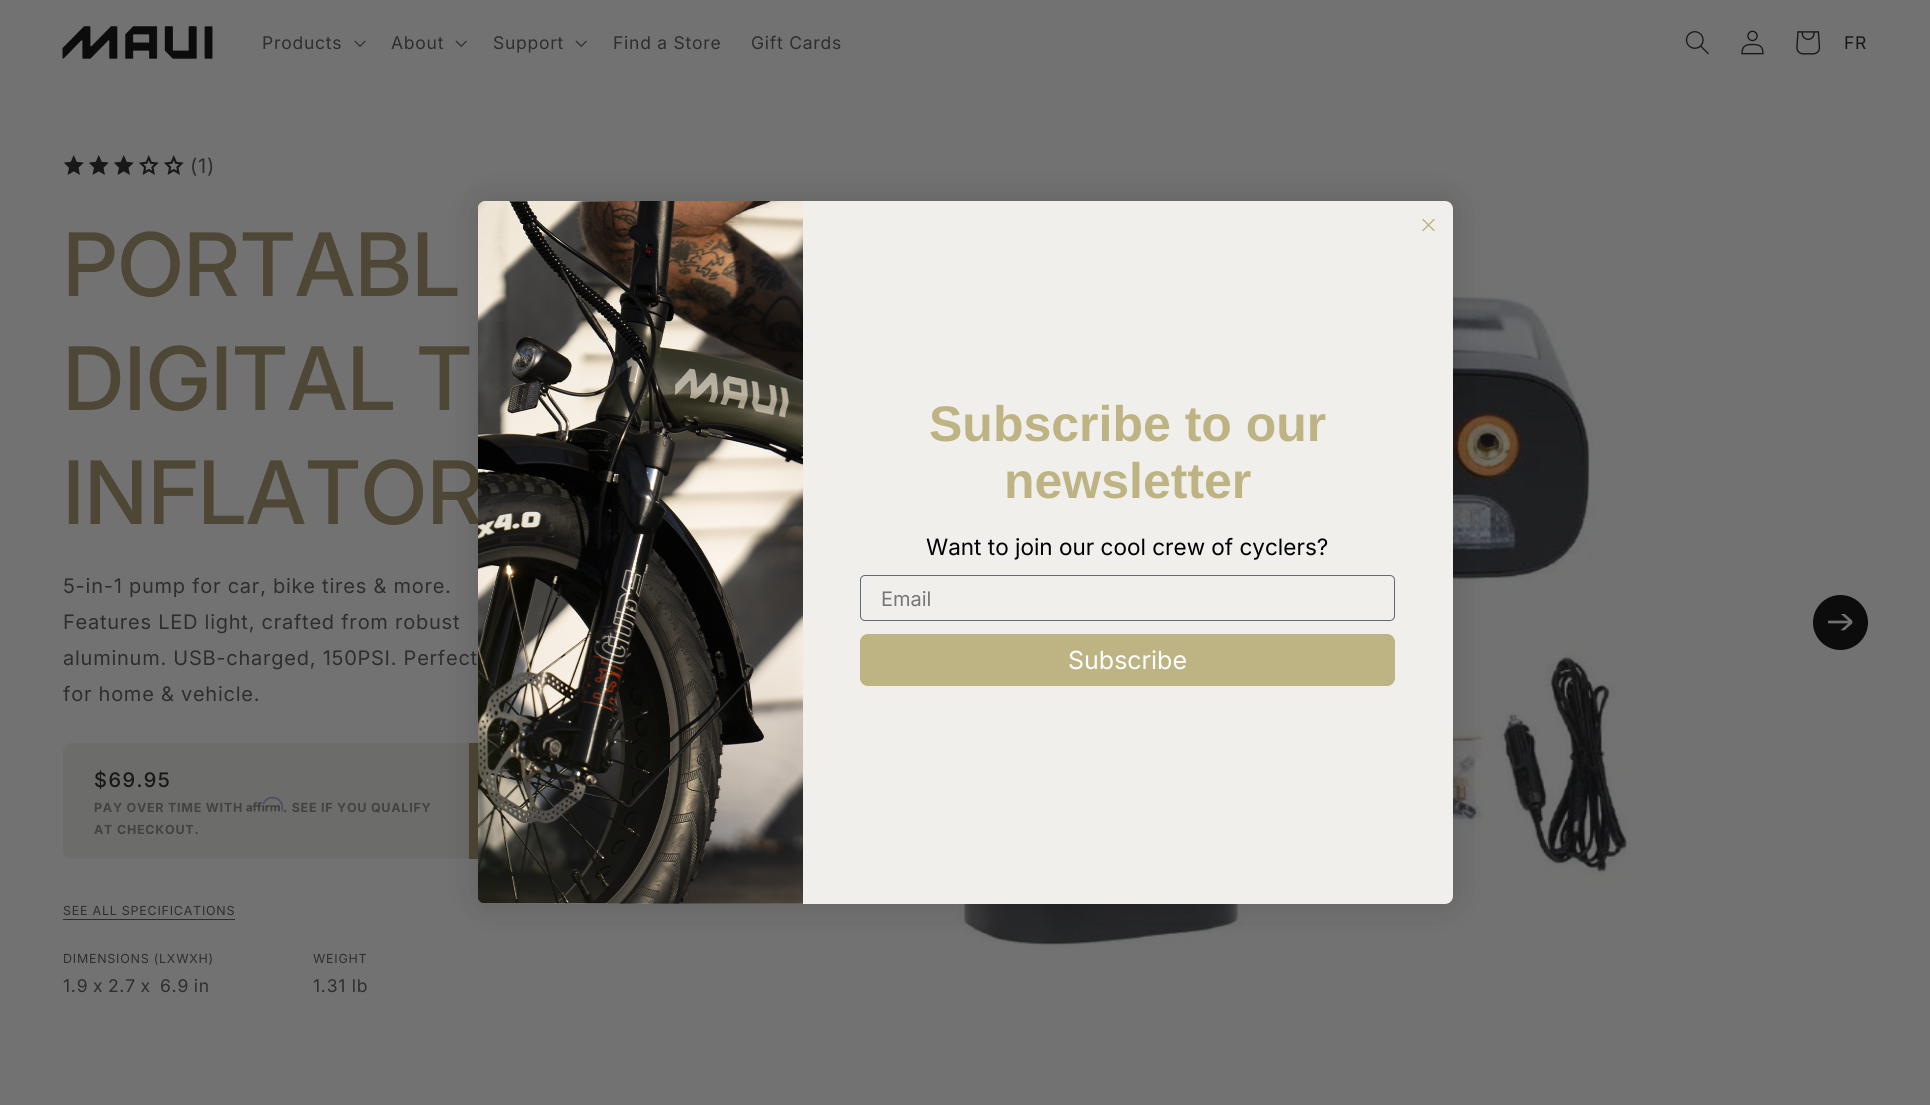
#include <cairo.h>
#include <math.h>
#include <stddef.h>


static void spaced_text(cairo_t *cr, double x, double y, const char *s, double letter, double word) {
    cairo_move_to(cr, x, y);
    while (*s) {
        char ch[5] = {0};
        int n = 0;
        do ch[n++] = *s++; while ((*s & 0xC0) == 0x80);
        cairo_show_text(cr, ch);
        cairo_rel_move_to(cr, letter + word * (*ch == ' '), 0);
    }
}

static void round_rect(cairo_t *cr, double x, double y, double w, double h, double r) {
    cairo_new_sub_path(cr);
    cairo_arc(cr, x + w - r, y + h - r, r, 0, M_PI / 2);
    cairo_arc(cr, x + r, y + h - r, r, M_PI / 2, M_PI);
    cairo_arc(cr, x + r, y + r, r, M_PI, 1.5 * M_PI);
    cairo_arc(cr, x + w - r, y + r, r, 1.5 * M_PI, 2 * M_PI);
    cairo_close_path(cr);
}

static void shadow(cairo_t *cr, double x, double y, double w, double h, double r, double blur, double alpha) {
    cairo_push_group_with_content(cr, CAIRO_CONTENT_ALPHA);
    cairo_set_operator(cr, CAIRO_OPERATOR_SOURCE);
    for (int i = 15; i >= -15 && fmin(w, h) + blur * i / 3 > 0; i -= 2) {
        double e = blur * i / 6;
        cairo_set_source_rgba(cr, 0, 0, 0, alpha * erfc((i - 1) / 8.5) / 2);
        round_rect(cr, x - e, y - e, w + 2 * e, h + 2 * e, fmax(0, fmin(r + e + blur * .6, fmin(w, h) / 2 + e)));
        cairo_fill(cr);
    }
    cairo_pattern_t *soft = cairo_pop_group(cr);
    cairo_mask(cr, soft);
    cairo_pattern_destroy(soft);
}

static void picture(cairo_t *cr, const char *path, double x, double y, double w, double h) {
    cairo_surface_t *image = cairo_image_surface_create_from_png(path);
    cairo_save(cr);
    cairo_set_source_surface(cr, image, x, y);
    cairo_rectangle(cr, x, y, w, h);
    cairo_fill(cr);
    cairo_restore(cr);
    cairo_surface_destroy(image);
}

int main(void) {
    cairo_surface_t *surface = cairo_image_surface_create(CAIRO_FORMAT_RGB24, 1930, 1105);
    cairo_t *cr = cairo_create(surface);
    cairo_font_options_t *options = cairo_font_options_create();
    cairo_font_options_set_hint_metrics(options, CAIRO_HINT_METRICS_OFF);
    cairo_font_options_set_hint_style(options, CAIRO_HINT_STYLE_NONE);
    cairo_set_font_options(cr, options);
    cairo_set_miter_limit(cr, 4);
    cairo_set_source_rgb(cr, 0.447, 0.447, 0.447);
    cairo_paint(cr);
    picture(cr, "img1.png", 62, 26, 151, 33);
    cairo_select_font_face(cr, "Inter", CAIRO_FONT_SLANT_NORMAL, CAIRO_FONT_WEIGHT_NORMAL);
    cairo_set_font_size(cr, 17.5);
    cairo_set_source_rgb(cr, 0.18, 0.18, 0.18);
    spaced_text(cr, 262, 49, "Products", 0.75, 0);
    picture(cr, "img2.png", 354, 40, 12, 7);
    spaced_text(cr, 391, 49, "About", 0.75, 0);
    picture(cr, "img3.png", 455, 40, 12, 7);
    spaced_text(cr, 493, 49, "Support", 0.75, 0);
    picture(cr, "img3.png", 575, 40, 12, 7);
    spaced_text(cr, 613, 49, "Find a Store", 0.75, 0);
    spaced_text(cr, 751, 49, "Gift Cards", 0.75, 0);
    picture(cr, "img4.png", 1685, 31, 24, 24);
    picture(cr, "img5.png", 1741, 30, 23, 25);
    picture(cr, "img6.png", 1796, 31, 25, 24);
    cairo_set_source_rgb(cr, 0.094, 0.094, 0.094);
    spaced_text(cr, 1844, 49, "FR", 0.75, 0);
    picture(cr, "img7.png", 64, 155, 20, 20);
    picture(cr, "img7.png", 89, 155, 20, 20);
    picture(cr, "img7.png", 114, 155, 20, 20);
    picture(cr, "img7.png", 139, 155, 20, 20);
    picture(cr, "img7.png", 164, 155, 20, 20);
    picture(cr, "img8.png", 65, 156, 18, 18);
    picture(cr, "img8.png", 90, 156, 18, 18);
    picture(cr, "img8.png", 115, 156, 18, 18);
    cairo_set_font_size(cr, 20);
    cairo_set_source_rgb(cr, 0.18, 0.18, 0.18);
    spaced_text(cr, 190, 173, "(1)", 0.75, 0);
    cairo_select_font_face(cr, "Inter Medium", CAIRO_FONT_SLANT_NORMAL, CAIRO_FONT_WEIGHT_NORMAL);
    cairo_set_font_size(cr, 87.5);
    cairo_set_source_rgb(cr, 0.31, 0.278, 0.208);
    spaced_text(cr, 63, 296, "PORTABL", 0.75, 0);
    spaced_text(cr, 63, 410, "DIGITAL T", 0.75, 0);
    spaced_text(cr, 63, 524, "INFLATOR", 0.75, 0);
    cairo_select_font_face(cr, "Inter", CAIRO_FONT_SLANT_NORMAL, CAIRO_FONT_WEIGHT_NORMAL);
    cairo_set_font_size(cr, 20);
    cairo_set_source_rgb(cr, 0.18, 0.18, 0.18);
    spaced_text(cr, 63, 593, "5-in-1 pump for car, bike tires & more.", 0.75, 0);
    spaced_text(cr, 63, 629, "Features LED light, crafted from robust", 0.75, 0);
    spaced_text(cr, 63, 665, "aluminum. USB-charged, 150PSI. Perfect", 0.75, 0);
    spaced_text(cr, 63, 701, "for home & vehicle.", 0.75, 0);
    cairo_set_source_rgb(cr, 0.424, 0.424, 0.416);
    round_rect(cr, 63, 743, 625, 116, 9);
    cairo_fill(cr);
    cairo_select_font_face(cr, "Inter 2 Medium", CAIRO_FONT_SLANT_NORMAL, CAIRO_FONT_WEIGHT_NORMAL);
    cairo_set_source_rgb(cr, 0.094, 0.094, 0.094);
    spaced_text(cr, 94, 787, "$69.95", 1.5, 0);
    cairo_select_font_face(cr, "Inter", CAIRO_FONT_SLANT_NORMAL, CAIRO_FONT_WEIGHT_BOLD);
    cairo_set_font_size(cr, 12.5);
    cairo_set_source_rgb(cr, 0.259, 0.259, 0.255);
    spaced_text(cr, 94, 812, "PAY OVER TIME WITH", 0.75, 0);
    picture(cr, "img10.png", 246, 802, 34, 10);
    picture(cr, "img9.png", 262, 796, 22, 16);
    spaced_text(cr, 283, 812, ". SEE IF YOU QUALIFY", 0.75, 0);
    spaced_text(cr, 94, 834, "AT CHECKOUT.", 0.75, 0);
    cairo_set_source_rgb(cr, 0.31, 0.278, 0.208);
    cairo_rectangle(cr, 469, 743, 9, 116);
    cairo_fill(cr);
    round_rect(cr, 469.5, 743.5, 218, 115, 8.5);
    cairo_set_line_width(cr, 1);
    cairo_stroke(cr);
    cairo_select_font_face(cr, "Inter", CAIRO_FONT_SLANT_NORMAL, CAIRO_FONT_WEIGHT_NORMAL);
    cairo_set_source_rgb(cr, 0.18, 0.18, 0.18);
    spaced_text(cr, 63, 915, "SEE ALL SPECIFICATIONS", 0.75, 0);
    cairo_rectangle(cr, 63, 919, 172, 1);
    cairo_fill(cr);
    spaced_text(cr, 63, 963, "DIMENSIONS (LXWXH)", 0.75, 0);
    cairo_set_font_size(cr, 17.5);
    spaced_text(cr, 63, 992, "1.9 x 2.7 x", 0.75, -1);
    spaced_text(cr, 160, 992, "6.9 in", 0.75, -1);
    cairo_set_font_size(cr, 12.5);
    spaced_text(cr, 313, 963, "WEIGHT", 0.75, 0);
    cairo_set_font_size(cr, 17.5);
    spaced_text(cr, 313, 992, "1.31 lb", 0.75, 0);
    picture(cr, "img11.png", 954, 240, 677, 708);
    cairo_set_source_rgb(cr, 0.047, 0.047, 0.047);
    cairo_arc(cr, 1840.5, 622.5, 27.5, 0, 2 * M_PI);
    cairo_fill(cr);
    picture(cr, "img12.png", 1828, 614, 25, 17);
    cairo_set_source_rgb(cr, 0, 0, 0);
    shadow(cr, 478, 201, 975, 703, 8, 19, 0.15);
    cairo_set_source_rgb(cr, 0.941, 0.937, 0.922);
    round_rect(cr, 478, 201, 975, 703, 8);
    cairo_fill(cr);
    cairo_new_path(cr);
    cairo_move_to(cr, 1423, 219.5);
    cairo_line_to(cr, 1434, 230.5);
    cairo_move_to(cr, 1423, 230.5);
    cairo_line_to(cr, 1434, 219.5);
    cairo_close_path(cr);
    cairo_set_source_rgb(cr, 0.745, 0.702, 0.514);
    cairo_set_line_width(cr, 1.4);
    cairo_set_line_cap(cr, CAIRO_LINE_CAP_ROUND);
    cairo_set_line_join(cr, CAIRO_LINE_JOIN_ROUND);
    cairo_stroke(cr);
    picture(cr, "img13.png", 478, 201, 325, 703);
    cairo_select_font_face(cr, "Liberation Sans", CAIRO_FONT_SLANT_NORMAL, CAIRO_FONT_WEIGHT_BOLD);
    cairo_set_font_size(cr, 50);
    cairo_move_to(cr, 929, 441);
    cairo_show_text(cr, "Subscribe to our");
    cairo_move_to(cr, 1004, 498);
    cairo_show_text(cr, "newsletter");
    cairo_select_font_face(cr, "Inter", CAIRO_FONT_SLANT_NORMAL, CAIRO_FONT_WEIGHT_NORMAL);
    cairo_set_font_size(cr, 22.5);
    cairo_set_source_rgb(cr, 0, 0, 0);
    cairo_move_to(cr, 926, 555);
    cairo_show_text(cr, "Want to join our cool crew of cyclers?");
    round_rect(cr, 860.5, 575.5, 534, 45, 4.5);
    cairo_set_source_rgb(cr, 0.376, 0.416, 0.447);
    cairo_set_line_width(cr, 1);
    cairo_set_line_cap(cr, CAIRO_LINE_CAP_BUTT);
    cairo_set_line_join(cr, CAIRO_LINE_JOIN_MITER);
    cairo_stroke(cr);
    cairo_set_font_size(cr, 20);
    cairo_set_source_rgb(cr, 0.463, 0.463, 0.463);
    cairo_move_to(cr, 881, 606);
    cairo_show_text(cr, "Email");
    cairo_set_source_rgb(cr, 0.745, 0.702, 0.514);
    round_rect(cr, 860, 634, 535, 52, 8);
    cairo_fill(cr);
    cairo_set_font_size(cr, 25);
    cairo_set_source_rgb(cr, 1, 1, 1);
    cairo_move_to(cr, 1068, 669);
    cairo_show_text(cr, "Subscribe");
    cairo_surface_write_to_png(surface, "page.png");
    cairo_font_options_destroy(options);
    cairo_destroy(cr);
    cairo_surface_destroy(surface);
    return 0;
}
